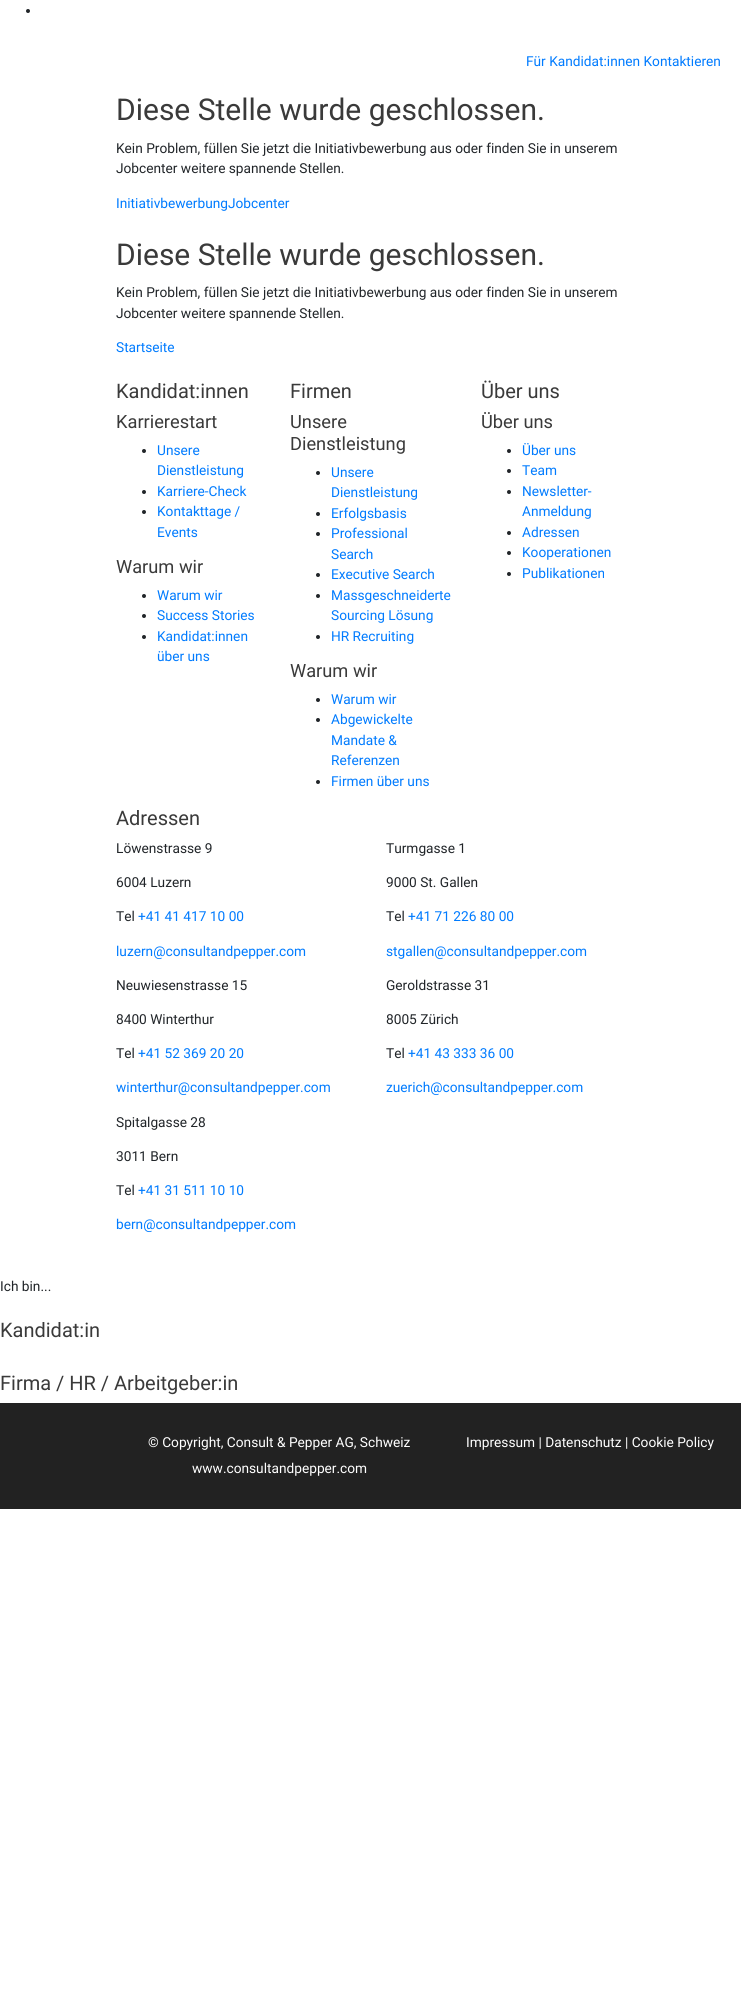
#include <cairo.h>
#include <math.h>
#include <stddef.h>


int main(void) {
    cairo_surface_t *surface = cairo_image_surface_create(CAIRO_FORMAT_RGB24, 741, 2009);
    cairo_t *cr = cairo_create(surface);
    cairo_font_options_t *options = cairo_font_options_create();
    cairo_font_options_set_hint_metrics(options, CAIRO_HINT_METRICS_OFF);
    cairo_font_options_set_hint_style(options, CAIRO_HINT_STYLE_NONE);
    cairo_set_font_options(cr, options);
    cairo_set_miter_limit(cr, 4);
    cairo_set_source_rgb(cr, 1, 1, 1);
    cairo_paint(cr);
    cairo_set_source_rgb(cr, 0.129, 0.145, 0.161);
    cairo_arc(cr, 28, 11, 2, 0, 2 * M_PI);
    cairo_fill(cr);
    cairo_select_font_face(cr, "Roboto", CAIRO_FONT_SLANT_NORMAL, CAIRO_FONT_WEIGHT_NORMAL);
    cairo_set_font_size(cr, 13.7);
    cairo_set_source_rgb(cr, 0, 0.482, 1);
    cairo_move_to(cr, 526, 66);
    cairo_show_text(cr, "Für Kandidat:innen Kontaktieren");
    cairo_set_font_size(cr, 30);
    cairo_set_source_rgb(cr, 0.227, 0.227, 0.227);
    cairo_move_to(cr, 116, 120);
    cairo_show_text(cr, "Diese Stelle wurde geschlossen.");
    cairo_set_font_size(cr, 13.7);
    cairo_set_source_rgb(cr, 0.129, 0.145, 0.161);
    cairo_move_to(cr, 116, 153);
    cairo_show_text(cr, "Kein Problem, füllen Sie jetzt die Initiativbewerbung aus oder finden Sie in unserem");
    cairo_move_to(cr, 116, 173);
    cairo_show_text(cr, "Jobcenter weitere spannende Stellen.");
    cairo_set_source_rgb(cr, 0, 0.482, 1);
    cairo_move_to(cr, 116, 208);
    cairo_show_text(cr, "InitiativbewerbungJobcenter");
    cairo_set_font_size(cr, 30);
    cairo_set_source_rgb(cr, 0.227, 0.227, 0.227);
    cairo_move_to(cr, 116, 265);
    cairo_show_text(cr, "Diese Stelle wurde geschlossen.");
    cairo_set_font_size(cr, 13.7);
    cairo_set_source_rgb(cr, 0.129, 0.145, 0.161);
    cairo_move_to(cr, 116, 297);
    cairo_show_text(cr, "Kein Problem, füllen Sie jetzt die Initiativbewerbung aus oder finden Sie in unserem");
    cairo_move_to(cr, 116, 318);
    cairo_show_text(cr, "Jobcenter weitere spannende Stellen.");
    cairo_set_source_rgb(cr, 0, 0.482, 1);
    cairo_move_to(cr, 116, 352);
    cairo_show_text(cr, "Startseite");
    cairo_set_font_size(cr, 20);
    cairo_set_source_rgb(cr, 0.227, 0.227, 0.227);
    cairo_move_to(cr, 116, 398);
    cairo_show_text(cr, "Kandidat:innen");
    cairo_set_font_size(cr, 18.25);
    cairo_move_to(cr, 116, 428);
    cairo_show_text(cr, "Karrierestart");
    cairo_set_source_rgb(cr, 0.129, 0.145, 0.161);
    cairo_new_path(cr);
    cairo_arc(cr, 144, 451, 2, 0, 2 * M_PI);
    cairo_fill(cr);
    cairo_set_font_size(cr, 13.7);
    cairo_set_source_rgb(cr, 0, 0.482, 1);
    cairo_move_to(cr, 157, 455);
    cairo_show_text(cr, "Unsere");
    cairo_move_to(cr, 157, 475);
    cairo_show_text(cr, "Dienstleistung");
    cairo_set_source_rgb(cr, 0.129, 0.145, 0.161);
    cairo_new_path(cr);
    cairo_arc(cr, 144, 492, 2, 0, 2 * M_PI);
    cairo_fill(cr);
    cairo_set_source_rgb(cr, 0, 0.482, 1);
    cairo_move_to(cr, 157, 496);
    cairo_show_text(cr, "Karriere-Check");
    cairo_set_source_rgb(cr, 0.129, 0.145, 0.161);
    cairo_new_path(cr);
    cairo_arc(cr, 144, 512, 2, 0, 2 * M_PI);
    cairo_fill(cr);
    cairo_set_source_rgb(cr, 0, 0.482, 1);
    cairo_move_to(cr, 157, 516);
    cairo_show_text(cr, "Kontakttage /");
    cairo_move_to(cr, 157, 537);
    cairo_show_text(cr, "Events");
    cairo_set_font_size(cr, 18.25);
    cairo_set_source_rgb(cr, 0.227, 0.227, 0.227);
    cairo_move_to(cr, 116, 573);
    cairo_show_text(cr, "Warum wir");
    cairo_set_source_rgb(cr, 0.129, 0.145, 0.161);
    cairo_new_path(cr);
    cairo_arc(cr, 144, 596, 2, 0, 2 * M_PI);
    cairo_fill(cr);
    cairo_set_font_size(cr, 13.7);
    cairo_set_source_rgb(cr, 0, 0.482, 1);
    cairo_move_to(cr, 157, 600);
    cairo_show_text(cr, "Warum wir");
    cairo_set_source_rgb(cr, 0.129, 0.145, 0.161);
    cairo_new_path(cr);
    cairo_arc(cr, 144, 616, 2, 0, 2 * M_PI);
    cairo_fill(cr);
    cairo_set_source_rgb(cr, 0, 0.482, 1);
    cairo_move_to(cr, 157, 620);
    cairo_show_text(cr, "Success Stories");
    cairo_set_source_rgb(cr, 0.129, 0.145, 0.161);
    cairo_new_path(cr);
    cairo_arc(cr, 144, 637, 2, 0, 2 * M_PI);
    cairo_fill(cr);
    cairo_set_source_rgb(cr, 0, 0.482, 1);
    cairo_move_to(cr, 157, 641);
    cairo_show_text(cr, "Kandidat:innen");
    cairo_move_to(cr, 157, 661);
    cairo_show_text(cr, "über uns");
    cairo_set_font_size(cr, 20);
    cairo_set_source_rgb(cr, 0.227, 0.227, 0.227);
    cairo_move_to(cr, 290, 398);
    cairo_show_text(cr, "Firmen");
    cairo_set_font_size(cr, 18.25);
    cairo_move_to(cr, 290, 428);
    cairo_show_text(cr, "Unsere");
    cairo_move_to(cr, 290, 450);
    cairo_show_text(cr, "Dienstleistung");
    cairo_set_source_rgb(cr, 0.129, 0.145, 0.161);
    cairo_new_path(cr);
    cairo_arc(cr, 318, 473, 2, 0, 2 * M_PI);
    cairo_fill(cr);
    cairo_set_font_size(cr, 13.7);
    cairo_set_source_rgb(cr, 0, 0.482, 1);
    cairo_move_to(cr, 331, 477);
    cairo_show_text(cr, "Unsere");
    cairo_move_to(cr, 331, 497);
    cairo_show_text(cr, "Dienstleistung");
    cairo_set_source_rgb(cr, 0.129, 0.145, 0.161);
    cairo_new_path(cr);
    cairo_arc(cr, 318, 514, 2, 0, 2 * M_PI);
    cairo_fill(cr);
    cairo_set_source_rgb(cr, 0, 0.482, 1);
    cairo_move_to(cr, 331, 518);
    cairo_show_text(cr, "Erfolgsbasis");
    cairo_set_source_rgb(cr, 0.129, 0.145, 0.161);
    cairo_new_path(cr);
    cairo_arc(cr, 318, 534, 2, 0, 2 * M_PI);
    cairo_fill(cr);
    cairo_set_source_rgb(cr, 0, 0.482, 1);
    cairo_move_to(cr, 331, 538);
    cairo_show_text(cr, "Professional");
    cairo_move_to(cr, 331, 559);
    cairo_show_text(cr, "Search");
    cairo_set_source_rgb(cr, 0.129, 0.145, 0.161);
    cairo_new_path(cr);
    cairo_arc(cr, 318, 575, 2, 0, 2 * M_PI);
    cairo_fill(cr);
    cairo_set_source_rgb(cr, 0, 0.482, 1);
    cairo_move_to(cr, 331, 579);
    cairo_show_text(cr, "Executive Search");
    cairo_set_source_rgb(cr, 0.129, 0.145, 0.161);
    cairo_new_path(cr);
    cairo_arc(cr, 318, 596, 2, 0, 2 * M_PI);
    cairo_fill(cr);
    cairo_set_source_rgb(cr, 0, 0.482, 1);
    cairo_move_to(cr, 331, 600);
    cairo_show_text(cr, "Massgeschneiderte");
    cairo_move_to(cr, 331, 620);
    cairo_show_text(cr, "Sourcing Lösung");
    cairo_set_source_rgb(cr, 0.129, 0.145, 0.161);
    cairo_new_path(cr);
    cairo_arc(cr, 318, 637, 2, 0, 2 * M_PI);
    cairo_fill(cr);
    cairo_set_source_rgb(cr, 0, 0.482, 1);
    cairo_move_to(cr, 331, 641);
    cairo_show_text(cr, "HR Recruiting");
    cairo_set_font_size(cr, 18.25);
    cairo_set_source_rgb(cr, 0.227, 0.227, 0.227);
    cairo_move_to(cr, 290, 677);
    cairo_show_text(cr, "Warum wir");
    cairo_set_source_rgb(cr, 0.129, 0.145, 0.161);
    cairo_new_path(cr);
    cairo_arc(cr, 318, 700, 2, 0, 2 * M_PI);
    cairo_fill(cr);
    cairo_set_font_size(cr, 13.7);
    cairo_set_source_rgb(cr, 0, 0.482, 1);
    cairo_move_to(cr, 331, 704);
    cairo_show_text(cr, "Warum wir");
    cairo_set_source_rgb(cr, 0.129, 0.145, 0.161);
    cairo_new_path(cr);
    cairo_arc(cr, 318, 720, 2, 0, 2 * M_PI);
    cairo_fill(cr);
    cairo_set_source_rgb(cr, 0, 0.482, 1);
    cairo_move_to(cr, 331, 724);
    cairo_show_text(cr, "Abgewickelte");
    cairo_move_to(cr, 331, 745);
    cairo_show_text(cr, "Mandate &");
    cairo_move_to(cr, 331, 765);
    cairo_show_text(cr, "Referenzen");
    cairo_set_source_rgb(cr, 0.129, 0.145, 0.161);
    cairo_new_path(cr);
    cairo_arc(cr, 318, 782, 2, 0, 2 * M_PI);
    cairo_fill(cr);
    cairo_set_source_rgb(cr, 0, 0.482, 1);
    cairo_move_to(cr, 331, 786);
    cairo_show_text(cr, "Firmen über uns");
    cairo_set_font_size(cr, 20);
    cairo_set_source_rgb(cr, 0.227, 0.227, 0.227);
    cairo_move_to(cr, 481, 398);
    cairo_show_text(cr, "Über uns");
    cairo_set_font_size(cr, 18.25);
    cairo_move_to(cr, 481, 428);
    cairo_show_text(cr, "Über uns");
    cairo_set_source_rgb(cr, 0.129, 0.145, 0.161);
    cairo_new_path(cr);
    cairo_arc(cr, 509, 451, 2, 0, 2 * M_PI);
    cairo_fill(cr);
    cairo_set_font_size(cr, 13.7);
    cairo_set_source_rgb(cr, 0, 0.482, 1);
    cairo_move_to(cr, 522, 455);
    cairo_show_text(cr, "Über uns");
    cairo_set_source_rgb(cr, 0.129, 0.145, 0.161);
    cairo_new_path(cr);
    cairo_arc(cr, 509, 471, 2, 0, 2 * M_PI);
    cairo_fill(cr);
    cairo_set_source_rgb(cr, 0, 0.482, 1);
    cairo_move_to(cr, 522, 475);
    cairo_show_text(cr, "Team");
    cairo_set_source_rgb(cr, 0.129, 0.145, 0.161);
    cairo_new_path(cr);
    cairo_arc(cr, 509, 492, 2, 0, 2 * M_PI);
    cairo_fill(cr);
    cairo_set_source_rgb(cr, 0, 0.482, 1);
    cairo_move_to(cr, 522, 496);
    cairo_show_text(cr, "Newsletter-");
    cairo_move_to(cr, 522, 516);
    cairo_show_text(cr, "Anmeldung");
    cairo_set_source_rgb(cr, 0.129, 0.145, 0.161);
    cairo_new_path(cr);
    cairo_arc(cr, 509, 533, 2, 0, 2 * M_PI);
    cairo_fill(cr);
    cairo_set_source_rgb(cr, 0, 0.482, 1);
    cairo_move_to(cr, 522, 537);
    cairo_show_text(cr, "Adressen");
    cairo_set_source_rgb(cr, 0.129, 0.145, 0.161);
    cairo_new_path(cr);
    cairo_arc(cr, 509, 553, 2, 0, 2 * M_PI);
    cairo_fill(cr);
    cairo_set_source_rgb(cr, 0, 0.482, 1);
    cairo_move_to(cr, 522, 557);
    cairo_show_text(cr, "Kooperationen");
    cairo_set_source_rgb(cr, 0.129, 0.145, 0.161);
    cairo_new_path(cr);
    cairo_arc(cr, 509, 574, 2, 0, 2 * M_PI);
    cairo_fill(cr);
    cairo_set_source_rgb(cr, 0, 0.482, 1);
    cairo_move_to(cr, 522, 578);
    cairo_show_text(cr, "Publikationen");
    cairo_set_font_size(cr, 20);
    cairo_set_source_rgb(cr, 0.227, 0.227, 0.227);
    cairo_move_to(cr, 116, 825);
    cairo_show_text(cr, "Adressen");
    cairo_set_font_size(cr, 13.7);
    cairo_set_source_rgb(cr, 0.129, 0.145, 0.161);
    cairo_move_to(cr, 116, 853);
    cairo_show_text(cr, "Löwenstrasse 9");
    cairo_move_to(cr, 116, 887);
    cairo_show_text(cr, "6004 Luzern");
    cairo_move_to(cr, 116, 921);
    cairo_show_text(cr, "Tel");
    cairo_set_source_rgb(cr, 0, 0.482, 1);
    cairo_move_to(cr, 138, 921);
    cairo_show_text(cr, "+41 41 417 10 00");
    cairo_move_to(cr, 116, 956);
    cairo_show_text(cr, "luzern@consultandpepper.com");
    cairo_set_source_rgb(cr, 0.129, 0.145, 0.161);
    cairo_move_to(cr, 386, 853);
    cairo_show_text(cr, "Turmgasse 1");
    cairo_move_to(cr, 386, 887);
    cairo_show_text(cr, "9000 St. Gallen");
    cairo_move_to(cr, 386, 921);
    cairo_show_text(cr, "Tel");
    cairo_set_source_rgb(cr, 0, 0.482, 1);
    cairo_move_to(cr, 408, 921);
    cairo_show_text(cr, "+41 71 226 80 00");
    cairo_move_to(cr, 386, 956);
    cairo_show_text(cr, "stgallen@consultandpepper.com");
    cairo_set_source_rgb(cr, 0.129, 0.145, 0.161);
    cairo_move_to(cr, 116, 990);
    cairo_show_text(cr, "Neuwiesenstrasse 15");
    cairo_move_to(cr, 116, 1024);
    cairo_show_text(cr, "8400 Winterthur");
    cairo_move_to(cr, 116, 1058);
    cairo_show_text(cr, "Tel");
    cairo_set_source_rgb(cr, 0, 0.482, 1);
    cairo_move_to(cr, 138, 1058);
    cairo_show_text(cr, "+41 52 369 20 20");
    cairo_move_to(cr, 116, 1092);
    cairo_show_text(cr, "winterthur@consultandpepper.com");
    cairo_set_source_rgb(cr, 0.129, 0.145, 0.161);
    cairo_move_to(cr, 386, 990);
    cairo_show_text(cr, "Geroldstrasse 31");
    cairo_move_to(cr, 386, 1024);
    cairo_show_text(cr, "8005 Zürich");
    cairo_move_to(cr, 386, 1058);
    cairo_show_text(cr, "Tel");
    cairo_set_source_rgb(cr, 0, 0.482, 1);
    cairo_move_to(cr, 408, 1058);
    cairo_show_text(cr, "+41 43 333 36 00");
    cairo_move_to(cr, 386, 1092);
    cairo_show_text(cr, "zuerich@consultandpepper.com");
    cairo_set_source_rgb(cr, 0.129, 0.145, 0.161);
    cairo_move_to(cr, 116, 1127);
    cairo_show_text(cr, "Spitalgasse 28");
    cairo_move_to(cr, 116, 1161);
    cairo_show_text(cr, "3011 Bern");
    cairo_move_to(cr, 116, 1195);
    cairo_show_text(cr, "Tel");
    cairo_set_source_rgb(cr, 0, 0.482, 1);
    cairo_move_to(cr, 138, 1195);
    cairo_show_text(cr, "+41 31 511 10 10");
    cairo_move_to(cr, 116, 1229);
    cairo_show_text(cr, "bern@consultandpepper.com");
    cairo_set_source_rgb(cr, 0.129, 0.145, 0.161);
    cairo_move_to(cr, 0, 1291);
    cairo_show_text(cr, "Ich bin...");
    cairo_set_font_size(cr, 20);
    cairo_set_source_rgb(cr, 0.227, 0.227, 0.227);
    cairo_move_to(cr, 0, 1337);
    cairo_show_text(cr, "Kandidat:in");
    cairo_move_to(cr, 0, 1390);
    cairo_show_text(cr, "Firma / HR / Arbeitgeber:in");
    cairo_set_source_rgb(cr, 0.133, 0.133, 0.133);
    cairo_rectangle(cr, 0, 1403, 741, 106);
    cairo_fill(cr);
    cairo_set_font_size(cr, 13.7);
    cairo_set_source_rgb(cr, 1, 1, 1);
    cairo_move_to(cr, 148, 1447);
    cairo_show_text(cr, "© Copyright, Consult & Pepper AG, Schweiz");
    cairo_move_to(cr, 192, 1473);
    cairo_show_text(cr, "www.consultandpepper.com");
    cairo_move_to(cr, 466, 1447);
    cairo_show_text(cr, "Impressum | Datenschutz | Cookie Policy");
    cairo_surface_write_to_png(surface, "page.png");
    cairo_font_options_destroy(options);
    cairo_destroy(cr);
    cairo_surface_destroy(surface);
    return 0;
}
